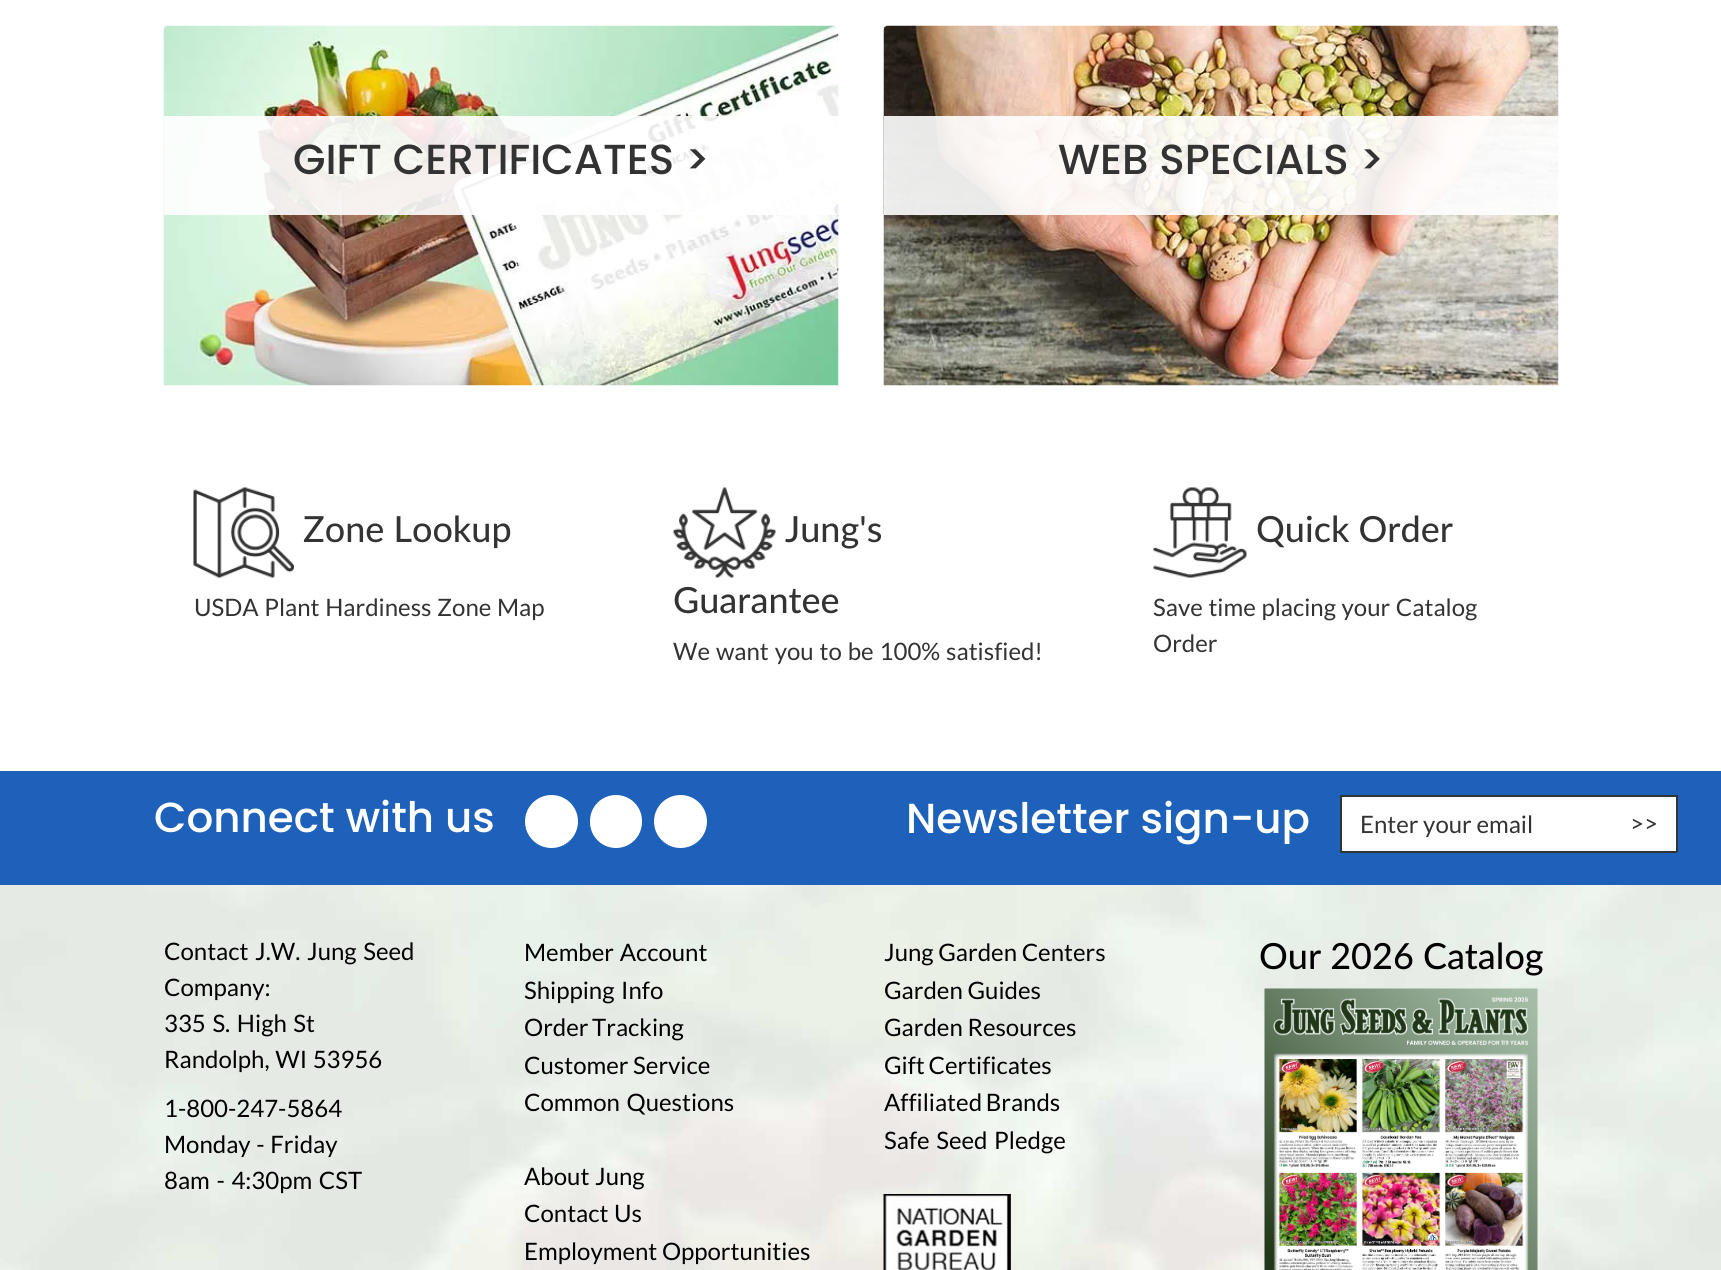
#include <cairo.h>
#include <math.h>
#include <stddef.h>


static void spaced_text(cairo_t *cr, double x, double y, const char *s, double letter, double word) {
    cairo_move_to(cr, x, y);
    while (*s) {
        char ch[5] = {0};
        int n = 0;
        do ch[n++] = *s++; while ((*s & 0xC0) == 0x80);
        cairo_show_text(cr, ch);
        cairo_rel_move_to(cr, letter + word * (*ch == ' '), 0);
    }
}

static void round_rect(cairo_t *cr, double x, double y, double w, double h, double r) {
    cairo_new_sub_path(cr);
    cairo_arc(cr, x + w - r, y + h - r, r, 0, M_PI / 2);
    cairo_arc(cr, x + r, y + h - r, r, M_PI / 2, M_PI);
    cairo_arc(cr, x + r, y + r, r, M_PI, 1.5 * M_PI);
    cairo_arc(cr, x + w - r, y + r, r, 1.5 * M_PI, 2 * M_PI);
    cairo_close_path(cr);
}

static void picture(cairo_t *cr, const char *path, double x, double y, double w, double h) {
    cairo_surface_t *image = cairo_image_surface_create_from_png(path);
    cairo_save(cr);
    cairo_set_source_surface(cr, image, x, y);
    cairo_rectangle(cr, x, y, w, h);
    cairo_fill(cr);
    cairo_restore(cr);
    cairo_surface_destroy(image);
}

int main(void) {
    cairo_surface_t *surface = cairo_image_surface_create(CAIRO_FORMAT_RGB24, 1721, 1270);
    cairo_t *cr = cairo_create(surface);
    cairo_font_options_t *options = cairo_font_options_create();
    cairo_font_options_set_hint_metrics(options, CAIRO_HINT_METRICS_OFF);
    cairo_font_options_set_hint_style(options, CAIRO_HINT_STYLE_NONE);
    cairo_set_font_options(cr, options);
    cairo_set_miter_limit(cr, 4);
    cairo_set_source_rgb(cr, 1, 1, 1);
    cairo_paint(cr);
    picture(cr, "img1.png", 163, 25, 676, 361);
    cairo_set_source_rgba(cr, 1, 1, 1, 0.9);
    cairo_rectangle(cr, 164, 116, 675, 99);
    cairo_fill(cr);
    cairo_select_font_face(cr, "Poppins Medium", CAIRO_FONT_SLANT_NORMAL, CAIRO_FONT_WEIGHT_NORMAL);
    cairo_set_font_size(cr, 42);
    cairo_set_source_rgb(cr, 0.2, 0.2, 0.2);
    cairo_move_to(cr, 293, 174);
    cairo_show_text(cr, "GIFT CERTIFICATES >");
    picture(cr, "img2.png", 883, 25, 676, 361);
    cairo_set_source_rgba(cr, 1, 1, 1, 0.9);
    cairo_rectangle(cr, 884, 116, 675, 99);
    cairo_fill(cr);
    cairo_set_source_rgb(cr, 0.2, 0.2, 0.2);
    cairo_move_to(cr, 1058, 174);
    cairo_show_text(cr, "WEB SPECIALS >");
    picture(cr, "img3.png", 193, 487, 101, 91);
    cairo_select_font_face(cr, "Lato Medium", CAIRO_FONT_SLANT_NORMAL, CAIRO_FONT_WEIGHT_NORMAL);
    cairo_set_font_size(cr, 36);
    cairo_move_to(cr, 303, 542);
    cairo_show_text(cr, "Zone Lookup");
    cairo_select_font_face(cr, "Lato", CAIRO_FONT_SLANT_NORMAL, CAIRO_FONT_WEIGHT_NORMAL);
    cairo_set_font_size(cr, 24);
    spaced_text(cr, 194, 616, "USDA Plant Hardiness Zone Map", 0, 1);
    picture(cr, "img4.png", 673, 487, 103, 91);
    cairo_select_font_face(cr, "Lato Medium", CAIRO_FONT_SLANT_NORMAL, CAIRO_FONT_WEIGHT_NORMAL);
    cairo_set_font_size(cr, 36);
    cairo_move_to(cr, 785, 542);
    cairo_show_text(cr, "Jung's");
    cairo_move_to(cr, 673, 613);
    cairo_show_text(cr, "Guarantee");
    cairo_select_font_face(cr, "Lato", CAIRO_FONT_SLANT_NORMAL, CAIRO_FONT_WEIGHT_NORMAL);
    cairo_set_font_size(cr, 24);
    spaced_text(cr, 673, 660, "We want you to be 100% satisfied!", 0, 1.25);
    picture(cr, "img5.png", 1153, 487, 94, 91);
    cairo_select_font_face(cr, "Lato Medium", CAIRO_FONT_SLANT_NORMAL, CAIRO_FONT_WEIGHT_NORMAL);
    cairo_set_font_size(cr, 36);
    cairo_move_to(cr, 1256, 542);
    cairo_show_text(cr, "Quick Order");
    cairo_select_font_face(cr, "Lato", CAIRO_FONT_SLANT_NORMAL, CAIRO_FONT_WEIGHT_NORMAL);
    cairo_set_font_size(cr, 24);
    spaced_text(cr, 1153, 616, "Save time placing your Catalog", 0, 1);
    cairo_move_to(cr, 1153, 652);
    cairo_show_text(cr, "Order");
    cairo_set_source_rgb(cr, 0.114, 0.38, 0.733);
    cairo_rectangle(cr, 0, 771, 1721, 114);
    cairo_fill(cr);
    cairo_select_font_face(cr, "Poppins Medium", CAIRO_FONT_SLANT_NORMAL, CAIRO_FONT_WEIGHT_NORMAL);
    cairo_set_font_size(cr, 42);
    cairo_set_source_rgb(cr, 1, 1, 1);
    cairo_move_to(cr, 154, 832);
    cairo_show_text(cr, "Connect with us");
    cairo_new_path(cr);
    cairo_arc(cr, 551.5, 821.5, 25.5, 0, 2 * M_PI);
    cairo_fill_preserve(cr);
    cairo_stroke(cr);
    round_rect(cr, 591, 796, 50, 51, 25);
    cairo_fill_preserve(cr);
    cairo_stroke(cr);
    cairo_arc(cr, 680.5, 821.5, 25.5, 0, 2 * M_PI);
    cairo_fill_preserve(cr);
    cairo_stroke(cr);
    cairo_move_to(cr, 906, 833);
    cairo_show_text(cr, "Newsletter sign-up");
    cairo_rectangle(cr, 1342, 797, 334, 54);
    cairo_fill(cr);
    cairo_set_source_rgb(cr, 0.2, 0.2, 0.2);
    cairo_rectangle(cr, 1340, 795, 337, 2);
    cairo_fill(cr);
    cairo_rectangle(cr, 1340, 851, 271, 2);
    cairo_fill(cr);
    cairo_rectangle(cr, 1340, 795, 2, 57);
    cairo_fill(cr);
    cairo_select_font_face(cr, "Lato", CAIRO_FONT_SLANT_NORMAL, CAIRO_FONT_WEIGHT_NORMAL);
    cairo_set_font_size(cr, 24);
    cairo_move_to(cr, 1360, 833);
    cairo_show_text(cr, "Enter your email");
    cairo_rectangle(cr, 1676, 795, 2, 57);
    cairo_fill(cr);
    cairo_rectangle(cr, 1611, 851, 66, 2);
    cairo_fill(cr);
    cairo_move_to(cr, 1630, 832);
    cairo_show_text(cr, ">>");
    picture(cr, "img6.png", 0, 885, 1721, 385);
    cairo_set_source_rgb(cr, 0, 0, 0);
    spaced_text(cr, 164, 960, "Contact J.W. Jung Seed", 0, 2);
    cairo_move_to(cr, 164, 996);
    cairo_show_text(cr, "Company:");
    spaced_text(cr, 164, 1032, "335 S. High St", 0, 2);
    spaced_text(cr, 164, 1068, "Randolph, WI 53956", 0, 1);
    cairo_move_to(cr, 164, 1117);
    cairo_show_text(cr, "1-800-247-5864");
    spaced_text(cr, 164, 1153, "Monday - Friday", 0, 1);
    spaced_text(cr, 164, 1189, "8am - 4:30pm CST", 0, 2);
    spaced_text(cr, 524, 961, "Member Account", 0, 1);
    spaced_text(cr, 524, 999, "Shipping Info", 0, 2);
    spaced_text(cr, 524, 1036, "Order Tracking", 0, -1);
    cairo_move_to(cr, 524, 1074);
    cairo_show_text(cr, "Customer Service");
    spaced_text(cr, 524, 1111, "Common Questions", 0, 2);
    spaced_text(cr, 524, 1185, "About Jung", 0, 1);
    spaced_text(cr, 524, 1222, "Contact Us", 0, 1);
    cairo_move_to(cr, 524, 1260);
    cairo_show_text(cr, "Employment Opportunities");
    cairo_move_to(cr, 884, 961);
    cairo_show_text(cr, "Jung Garden Centers");
    cairo_move_to(cr, 884, 999);
    cairo_show_text(cr, "Garden Guides");
    cairo_move_to(cr, 884, 1036);
    cairo_show_text(cr, "Garden Resources");
    spaced_text(cr, 884, 1074, "Gift Certificates", 0, -1);
    spaced_text(cr, 884, 1111, "Affiliated Brands", 0, -1);
    spaced_text(cr, 884, 1149, "Safe Seed Pledge", 0, 2);
    picture(cr, "img7.png", 883, 1194, 128, 76);
    cairo_select_font_face(cr, "Lato Medium", CAIRO_FONT_SLANT_NORMAL, CAIRO_FONT_WEIGHT_NORMAL);
    cairo_set_font_size(cr, 36);
    cairo_move_to(cr, 1259, 969);
    cairo_show_text(cr, "Our 2026 Catalog");
    picture(cr, "img8.png", 1264, 988, 274, 282);
    cairo_surface_write_to_png(surface, "page.png");
    cairo_font_options_destroy(options);
    cairo_destroy(cr);
    cairo_surface_destroy(surface);
    return 0;
}
